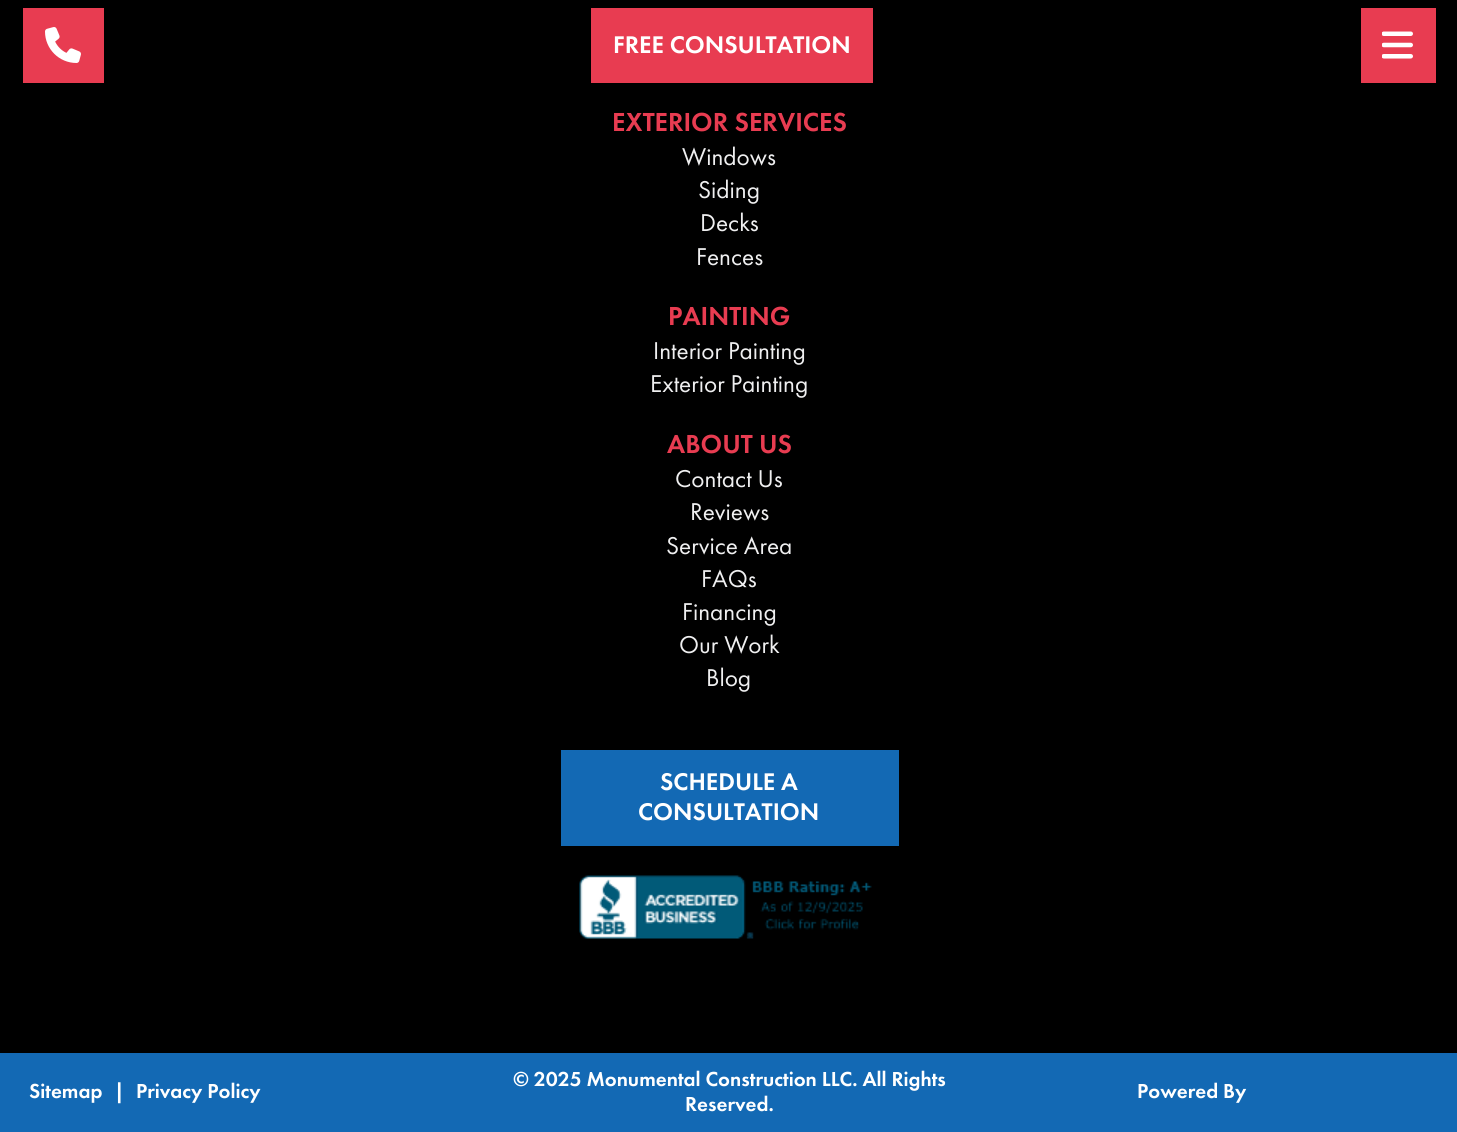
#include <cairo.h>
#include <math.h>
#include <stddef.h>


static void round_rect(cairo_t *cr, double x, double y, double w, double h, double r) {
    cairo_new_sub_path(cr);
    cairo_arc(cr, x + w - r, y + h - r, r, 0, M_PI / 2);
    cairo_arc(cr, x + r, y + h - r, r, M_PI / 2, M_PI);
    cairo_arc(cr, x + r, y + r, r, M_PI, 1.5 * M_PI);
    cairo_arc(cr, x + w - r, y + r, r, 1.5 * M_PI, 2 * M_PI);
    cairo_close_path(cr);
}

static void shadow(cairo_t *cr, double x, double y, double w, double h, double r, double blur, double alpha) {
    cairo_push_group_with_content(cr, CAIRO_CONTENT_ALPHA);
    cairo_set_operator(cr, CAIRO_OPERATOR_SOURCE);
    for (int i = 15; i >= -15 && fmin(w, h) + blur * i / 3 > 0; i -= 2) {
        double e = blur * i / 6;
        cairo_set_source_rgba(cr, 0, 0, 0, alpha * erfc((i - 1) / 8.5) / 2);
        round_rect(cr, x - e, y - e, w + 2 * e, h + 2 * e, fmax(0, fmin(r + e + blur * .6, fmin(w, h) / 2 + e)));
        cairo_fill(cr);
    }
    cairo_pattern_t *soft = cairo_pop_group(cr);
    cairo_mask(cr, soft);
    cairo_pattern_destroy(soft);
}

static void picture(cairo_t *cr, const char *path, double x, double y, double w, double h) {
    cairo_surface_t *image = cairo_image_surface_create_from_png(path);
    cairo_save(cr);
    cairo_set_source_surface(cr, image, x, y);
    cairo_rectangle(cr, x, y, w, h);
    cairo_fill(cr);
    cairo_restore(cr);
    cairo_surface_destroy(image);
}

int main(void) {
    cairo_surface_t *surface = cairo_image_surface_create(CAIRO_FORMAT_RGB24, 1457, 1132);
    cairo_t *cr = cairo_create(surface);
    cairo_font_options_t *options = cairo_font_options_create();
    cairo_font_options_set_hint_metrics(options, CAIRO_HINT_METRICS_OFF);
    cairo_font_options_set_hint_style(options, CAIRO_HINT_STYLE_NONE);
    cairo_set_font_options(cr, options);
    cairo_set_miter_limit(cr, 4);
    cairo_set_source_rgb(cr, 0, 0, 0);
    cairo_paint(cr);
    cairo_save(cr);
    cairo_rectangle(cr, 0, 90, 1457, 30);
    cairo_clip(cr);
    shadow(cr, 0, 18, 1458, 90, 0, 9, 0.2);
    cairo_restore(cr);
    cairo_set_source_rgb(cr, 0.91, 0.235, 0.318);
    cairo_rectangle(cr, 23, 8, 81, 75);
    cairo_fill(cr);
    picture(cr, "img1.png", 45, 27, 36, 36);
    cairo_rectangle(cr, 591, 8, 282, 75);
    cairo_fill(cr);
    cairo_select_font_face(cr, "Futura PT Medium", CAIRO_FONT_SLANT_NORMAL, CAIRO_FONT_WEIGHT_NORMAL);
    cairo_set_font_size(cr, 25);
    cairo_set_source_rgb(cr, 1, 1, 1);
    cairo_move_to(cr, 613, 53);
    cairo_show_text(cr, "FREE CONSULTATION");
    cairo_set_source_rgb(cr, 0.91, 0.235, 0.318);
    cairo_rectangle(cr, 1361, 8, 75, 75);
    cairo_fill(cr);
    picture(cr, "img2.png", 1382, 31, 31, 28);
    cairo_set_font_size(cr, 27);
    cairo_move_to(cr, 612, 131);
    cairo_show_text(cr, "EXTERIOR SERVICES");
    cairo_select_font_face(cr, "Futura PT", CAIRO_FONT_SLANT_NORMAL, CAIRO_FONT_WEIGHT_NORMAL);
    cairo_set_font_size(cr, 25.25);
    cairo_set_source_rgb(cr, 0.937, 0.937, 0.941);
    cairo_move_to(cr, 682, 165);
    cairo_show_text(cr, "Windows");
    cairo_move_to(cr, 698, 198);
    cairo_show_text(cr, "Siding");
    cairo_move_to(cr, 700, 231);
    cairo_show_text(cr, "Decks");
    cairo_move_to(cr, 696, 265);
    cairo_show_text(cr, "Fences");
    cairo_select_font_face(cr, "Futura PT Medium", CAIRO_FONT_SLANT_NORMAL, CAIRO_FONT_WEIGHT_NORMAL);
    cairo_set_font_size(cr, 27);
    cairo_set_source_rgb(cr, 0.91, 0.235, 0.318);
    cairo_move_to(cr, 668, 325);
    cairo_show_text(cr, "PAINTING");
    cairo_select_font_face(cr, "Futura PT", CAIRO_FONT_SLANT_NORMAL, CAIRO_FONT_WEIGHT_NORMAL);
    cairo_set_font_size(cr, 25.25);
    cairo_set_source_rgb(cr, 0.937, 0.937, 0.941);
    cairo_move_to(cr, 653, 359);
    cairo_show_text(cr, "Interior Painting");
    cairo_move_to(cr, 650, 392);
    cairo_show_text(cr, "Exterior Painting");
    cairo_select_font_face(cr, "Futura PT Medium", CAIRO_FONT_SLANT_NORMAL, CAIRO_FONT_WEIGHT_NORMAL);
    cairo_set_font_size(cr, 27);
    cairo_set_source_rgb(cr, 0.91, 0.235, 0.318);
    cairo_move_to(cr, 667, 453);
    cairo_show_text(cr, "ABOUT US");
    cairo_select_font_face(cr, "Futura PT", CAIRO_FONT_SLANT_NORMAL, CAIRO_FONT_WEIGHT_NORMAL);
    cairo_set_font_size(cr, 25.25);
    cairo_set_source_rgb(cr, 0.937, 0.937, 0.941);
    cairo_move_to(cr, 675, 487);
    cairo_show_text(cr, "Contact Us");
    cairo_move_to(cr, 690, 520);
    cairo_show_text(cr, "Reviews");
    cairo_move_to(cr, 666, 554);
    cairo_show_text(cr, "Service Area");
    cairo_move_to(cr, 701, 587);
    cairo_show_text(cr, "FAQs");
    cairo_move_to(cr, 682, 620);
    cairo_show_text(cr, "Financing");
    cairo_move_to(cr, 679, 653);
    cairo_show_text(cr, "Our Work");
    cairo_move_to(cr, 706, 686);
    cairo_show_text(cr, "Blog");
    cairo_set_source_rgb(cr, 0.075, 0.412, 0.706);
    cairo_rectangle(cr, 561, 750, 338, 96);
    cairo_fill(cr);
    cairo_select_font_face(cr, "Futura PT Medium", CAIRO_FONT_SLANT_NORMAL, CAIRO_FONT_WEIGHT_NORMAL);
    cairo_set_font_size(cr, 25);
    cairo_set_source_rgb(cr, 1, 1, 1);
    cairo_move_to(cr, 660, 790);
    cairo_show_text(cr, "SCHEDULE A");
    cairo_move_to(cr, 638, 820);
    cairo_show_text(cr, "CONSULTATION");
    picture(cr, "img3.png", 579, 875, 293, 64);
    cairo_set_source_rgb(cr, 0.075, 0.412, 0.706);
    cairo_rectangle(cr, 0, 1053, 1457, 79);
    cairo_fill(cr);
    cairo_set_font_size(cr, 21);
    cairo_set_source_rgb(cr, 1, 1, 1);
    cairo_move_to(cr, 29, 1098);
    cairo_show_text(cr, "Sitemap");
    cairo_move_to(cr, 114, 1098);
    cairo_show_text(cr, "|");
    cairo_move_to(cr, 136, 1098);
    cairo_show_text(cr, "Privacy Policy");
    cairo_move_to(cr, 513, 1086);
    cairo_show_text(cr, "© 2025 Monumental Construction LLC. All Rights");
    cairo_move_to(cr, 685, 1111);
    cairo_show_text(cr, "Reserved.");
    cairo_move_to(cr, 1137, 1098);
    cairo_show_text(cr, "Powered By");
    cairo_surface_write_to_png(surface, "page.png");
    cairo_font_options_destroy(options);
    cairo_destroy(cr);
    cairo_surface_destroy(surface);
    return 0;
}
